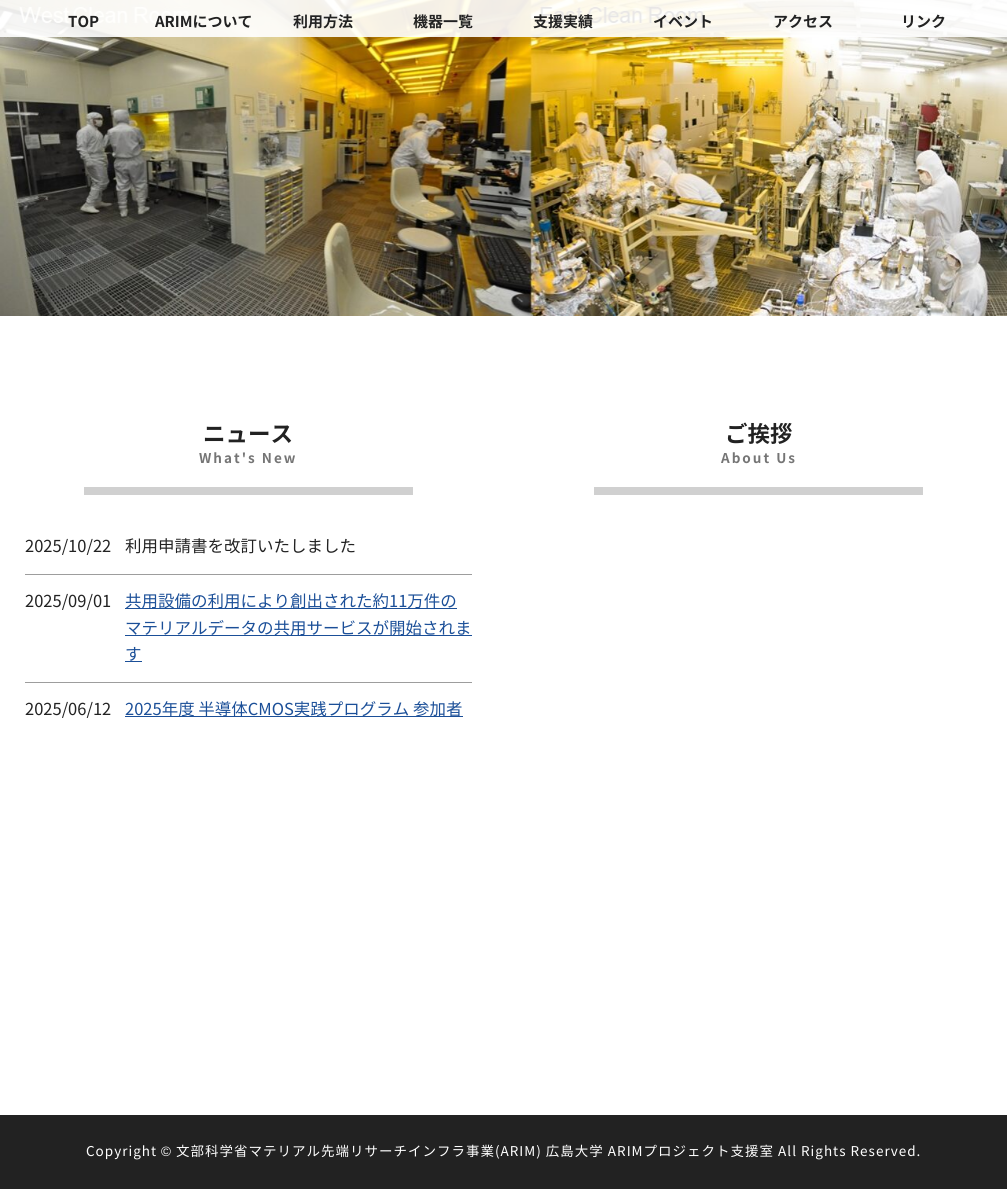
#include <cairo.h>
#include <math.h>
#include <stddef.h>


static void spaced_text(cairo_t *cr, double x, double y, const char *s, double letter, double word) {
    cairo_move_to(cr, x, y);
    while (*s) {
        char ch[5] = {0};
        int n = 0;
        do ch[n++] = *s++; while ((*s & 0xC0) == 0x80);
        cairo_show_text(cr, ch);
        cairo_rel_move_to(cr, letter + word * (*ch == ' '), 0);
    }
}

static void picture(cairo_t *cr, const char *path, double x, double y, double w, double h) {
    cairo_surface_t *image = cairo_image_surface_create_from_png(path);
    cairo_save(cr);
    cairo_set_source_surface(cr, image, x, y);
    cairo_rectangle(cr, x, y, w, h);
    cairo_fill(cr);
    cairo_restore(cr);
    cairo_surface_destroy(image);
}

int main(void) {
    cairo_surface_t *surface = cairo_image_surface_create(CAIRO_FORMAT_RGB24, 1007, 1189);
    cairo_t *cr = cairo_create(surface);
    cairo_font_options_t *options = cairo_font_options_create();
    cairo_font_options_set_hint_metrics(options, CAIRO_HINT_METRICS_OFF);
    cairo_font_options_set_hint_style(options, CAIRO_HINT_STYLE_NONE);
    cairo_set_font_options(cr, options);
    cairo_set_miter_limit(cr, 4);
    cairo_set_source_rgb(cr, 1, 1, 1);
    cairo_paint(cr);
    picture(cr, "img1.png", 0, 0, 1007, 316);
    cairo_set_source_rgba(cr, 1, 1, 1, 0.9);
    cairo_rectangle(cr, 0, 0, 1007, 37);
    cairo_fill(cr);
    cairo_select_font_face(cr, "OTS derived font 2", CAIRO_FONT_SLANT_NORMAL, CAIRO_FONT_WEIGHT_NORMAL);
    cairo_set_font_size(cr, 15);
    cairo_set_source_rgb(cr, 0.133, 0.133, 0.133);
    cairo_move_to(cr, 68, 27);
    cairo_show_text(cr, "TOP");
    cairo_move_to(cr, 155, 27);
    cairo_show_text(cr, "ARIMについて");
    cairo_move_to(cr, 293, 27);
    cairo_show_text(cr, "利用方法");
    cairo_move_to(cr, 413, 27);
    cairo_show_text(cr, "機器一覧");
    cairo_move_to(cr, 533, 27);
    cairo_show_text(cr, "支援実績");
    cairo_move_to(cr, 653, 27);
    cairo_show_text(cr, "イベント");
    cairo_move_to(cr, 773, 27);
    cairo_show_text(cr, "アクセス");
    cairo_move_to(cr, 901, 27);
    cairo_show_text(cr, "リンク");
    cairo_set_font_size(cr, 22.5);
    cairo_move_to(cr, 203, 442);
    cairo_show_text(cr, "ニュース");
    cairo_set_font_size(cr, 13.5);
    cairo_set_source_rgb(cr, 0.459, 0.459, 0.459);
    spaced_text(cr, 199, 463, "What's New", 2, 0);
    cairo_set_source_rgb(cr, 0.816, 0.816, 0.816);
    cairo_rectangle(cr, 84, 487, 329, 8);
    cairo_fill(cr);
    cairo_set_source_rgb(cr, 0.616, 0.616, 0.616);
    cairo_rectangle(cr, 25, 574, 447, 1);
    cairo_fill(cr);
    cairo_select_font_face(cr, "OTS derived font", CAIRO_FONT_SLANT_NORMAL, CAIRO_FONT_WEIGHT_NORMAL);
    cairo_set_font_size(cr, 16.5);
    cairo_set_source_rgb(cr, 0.133, 0.133, 0.133);
    cairo_move_to(cr, 25, 552);
    cairo_show_text(cr, "2025/10/22");
    cairo_move_to(cr, 125, 552);
    cairo_show_text(cr, "利用申請書を改訂いたしました");
    cairo_set_source_rgb(cr, 0.616, 0.616, 0.616);
    cairo_rectangle(cr, 25, 682, 447, 1);
    cairo_fill(cr);
    cairo_set_source_rgb(cr, 0.133, 0.133, 0.133);
    cairo_move_to(cr, 25, 607);
    cairo_show_text(cr, "2025/09/01");
    cairo_set_source_rgb(cr, 0.106, 0.31, 0.596);
    cairo_rectangle(cr, 125, 608, 332, 1);
    cairo_fill(cr);
    cairo_move_to(cr, 125, 607);
    cairo_show_text(cr, "共用設備の利用により創出された約11万件の");
    cairo_rectangle(cr, 125, 635, 347, 1);
    cairo_fill(cr);
    cairo_move_to(cr, 125, 634);
    cairo_show_text(cr, "マテリアルデータの共用サービスが開始されま");
    cairo_move_to(cr, 125, 660);
    cairo_show_text(cr, "す");
    cairo_rectangle(cr, 125, 661, 17, 1);
    cairo_fill(cr);
    cairo_set_source_rgb(cr, 0.133, 0.133, 0.133);
    cairo_move_to(cr, 25, 715);
    cairo_show_text(cr, "2025/06/12");
    cairo_set_source_rgb(cr, 0.106, 0.31, 0.596);
    cairo_rectangle(cr, 125, 716, 338, 1);
    cairo_fill(cr);
    cairo_move_to(cr, 125, 715);
    cairo_show_text(cr, "2025年度 半導体CMOS実践プログラム 参加者");
    cairo_select_font_face(cr, "OTS derived font 2", CAIRO_FONT_SLANT_NORMAL, CAIRO_FONT_WEIGHT_NORMAL);
    cairo_set_font_size(cr, 22.5);
    cairo_set_source_rgb(cr, 0.133, 0.133, 0.133);
    cairo_move_to(cr, 725, 442);
    cairo_show_text(cr, "ご挨拶");
    cairo_set_font_size(cr, 13.5);
    cairo_set_source_rgb(cr, 0.459, 0.459, 0.459);
    spaced_text(cr, 721, 463, "About Us", 2, 0);
    cairo_set_source_rgb(cr, 0.816, 0.816, 0.816);
    cairo_rectangle(cr, 594, 487, 329, 8);
    cairo_fill(cr);
    cairo_set_source_rgb(cr, 0.133, 0.133, 0.133);
    cairo_rectangle(cr, 0, 1115, 1007, 74);
    cairo_fill(cr);
    cairo_select_font_face(cr, "OTS derived font", CAIRO_FONT_SLANT_NORMAL, CAIRO_FONT_WEIGHT_NORMAL);
    cairo_set_source_rgb(cr, 1, 1, 1);
    spaced_text(cr, 86, 1156, "Copyright", 1, 0);
    cairo_select_font_face(cr, "Liberation Sans", CAIRO_FONT_SLANT_NORMAL, CAIRO_FONT_WEIGHT_NORMAL);
    spaced_text(cr, 161, 1156, "©", 1, 0);
    cairo_select_font_face(cr, "OTS derived font", CAIRO_FONT_SLANT_NORMAL, CAIRO_FONT_WEIGHT_NORMAL);
    spaced_text(cr, 176, 1156, "文部科学省マテリアル先端リサーチインフラ事業(ARIM) 広島大学 ARIMプロジェクト支援室 All Rights Reserved.", 1, 0);
    cairo_surface_write_to_png(surface, "page.png");
    cairo_font_options_destroy(options);
    cairo_destroy(cr);
    cairo_surface_destroy(surface);
    return 0;
}
